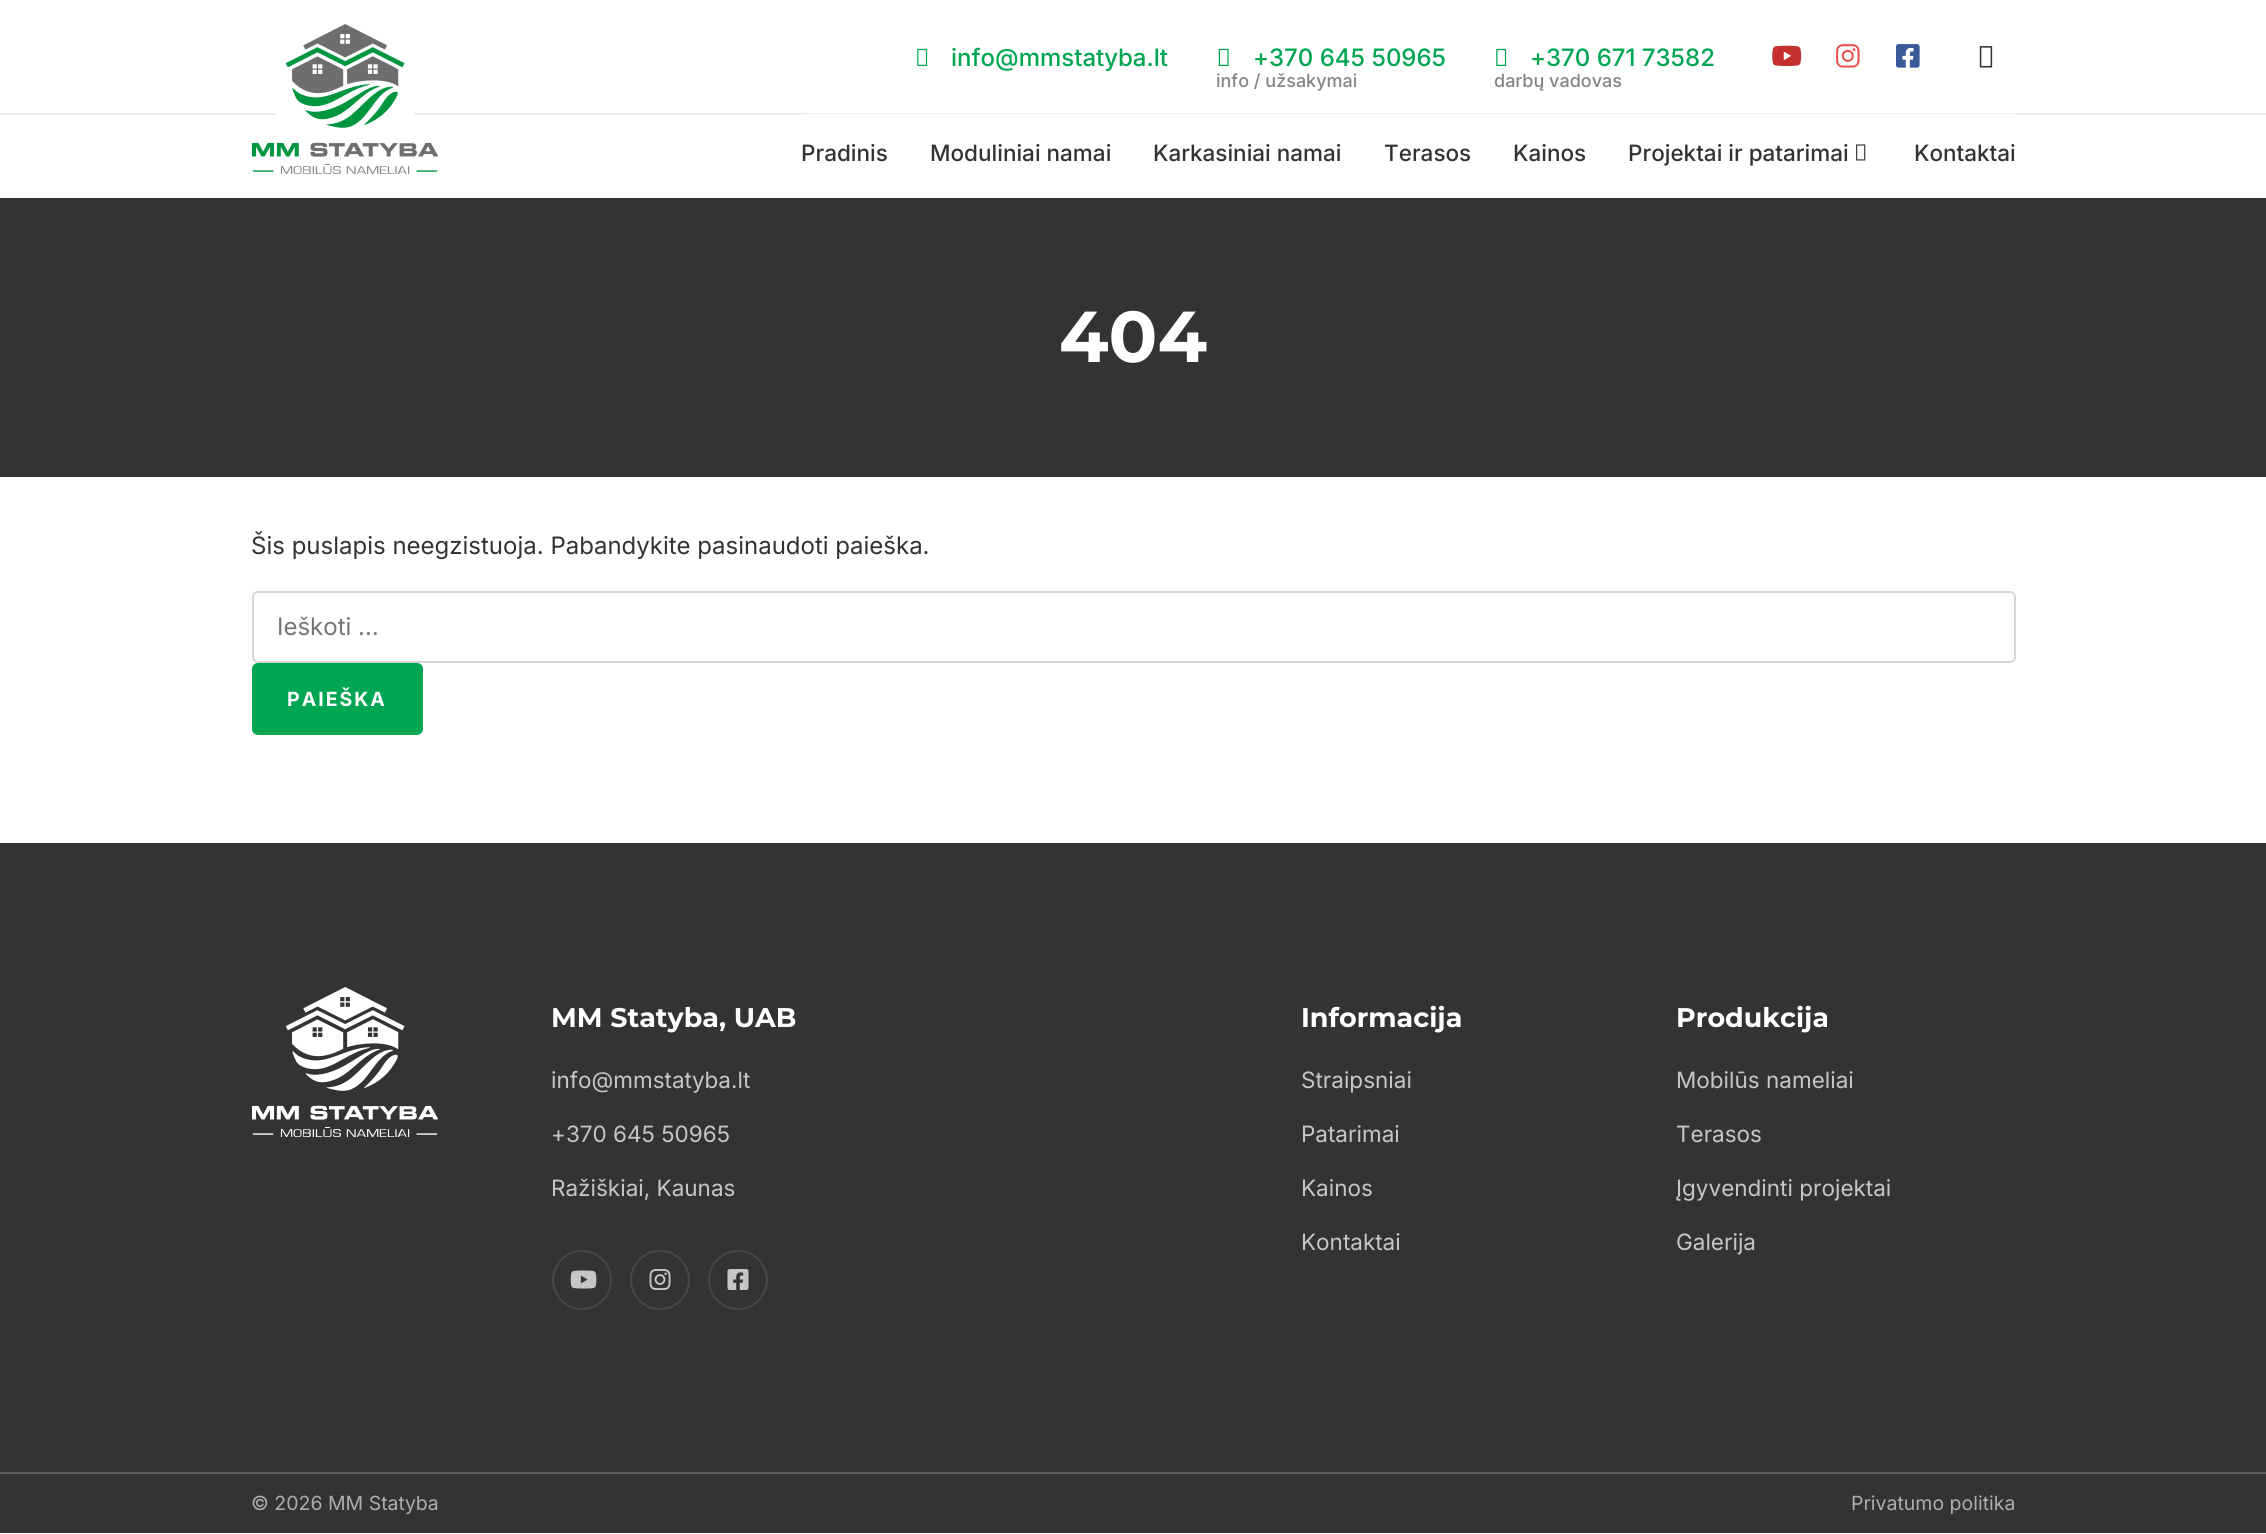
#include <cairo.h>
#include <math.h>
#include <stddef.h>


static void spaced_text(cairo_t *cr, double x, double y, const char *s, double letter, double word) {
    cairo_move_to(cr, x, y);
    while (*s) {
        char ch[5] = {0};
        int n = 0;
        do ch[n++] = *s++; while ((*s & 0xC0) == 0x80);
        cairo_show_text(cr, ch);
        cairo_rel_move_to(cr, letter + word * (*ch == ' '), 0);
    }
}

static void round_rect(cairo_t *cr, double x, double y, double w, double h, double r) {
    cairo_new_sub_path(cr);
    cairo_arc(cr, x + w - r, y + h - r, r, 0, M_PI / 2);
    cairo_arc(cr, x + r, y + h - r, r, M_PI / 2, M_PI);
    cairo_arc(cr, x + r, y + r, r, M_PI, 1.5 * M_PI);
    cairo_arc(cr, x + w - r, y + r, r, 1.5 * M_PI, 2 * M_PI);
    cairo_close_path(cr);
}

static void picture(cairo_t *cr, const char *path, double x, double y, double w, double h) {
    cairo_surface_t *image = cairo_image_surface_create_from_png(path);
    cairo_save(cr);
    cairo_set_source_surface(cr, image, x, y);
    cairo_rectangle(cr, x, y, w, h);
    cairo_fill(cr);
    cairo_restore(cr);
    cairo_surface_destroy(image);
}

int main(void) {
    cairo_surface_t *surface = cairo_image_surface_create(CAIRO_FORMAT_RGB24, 2266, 1534);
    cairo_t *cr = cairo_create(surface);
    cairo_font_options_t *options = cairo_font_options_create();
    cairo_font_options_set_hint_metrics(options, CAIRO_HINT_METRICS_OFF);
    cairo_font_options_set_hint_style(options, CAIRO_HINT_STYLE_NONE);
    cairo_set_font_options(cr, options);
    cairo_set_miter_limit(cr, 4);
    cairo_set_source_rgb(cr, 1, 1, 1);
    cairo_paint(cr);
    cairo_set_source_rgb(cr, 0.922, 0.922, 0.922);
    cairo_rectangle(cr, 0, 113, 2266, 2);
    cairo_fill(cr);
    cairo_set_source_rgb(cr, 1, 1, 1);
    cairo_rectangle(cr, 276, 113, 138, 2);
    cairo_fill(cr);
    picture(cr, "img1.png", 252, 24, 186, 150);
    picture(cr, "img2.png", 917, 48, 11, 18);
    cairo_select_font_face(cr, "Inter Medium", CAIRO_FONT_SLANT_NORMAL, CAIRO_FONT_WEIGHT_NORMAL);
    cairo_set_font_size(cr, 24);
    cairo_set_source_rgb(cr, 0, 0.651, 0.318);
    cairo_move_to(cr, 951, 66);
    cairo_show_text(cr, "info@mmstatyba.lt");
    picture(cr, "img3.png", 1218, 48, 11, 18);
    cairo_move_to(cr, 1253, 66);
    cairo_show_text(cr, "+370 645 50965");
    cairo_set_font_size(cr, 18);
    cairo_set_source_rgb(cr, 0.522, 0.522, 0.522);
    cairo_move_to(cr, 1216, 87);
    cairo_show_text(cr, "info / užsakymai");
    picture(cr, "img2.png", 1496, 48, 11, 18);
    cairo_set_font_size(cr, 24);
    cairo_set_source_rgb(cr, 0, 0.651, 0.318);
    cairo_move_to(cr, 1530, 66);
    cairo_show_text(cr, "+370 671 73582");
    cairo_set_font_size(cr, 18);
    cairo_set_source_rgb(cr, 0.522, 0.522, 0.522);
    cairo_move_to(cr, 1494, 87);
    cairo_show_text(cr, "darbų vadovas");
    picture(cr, "img4.png", 1772, 45, 30, 21);
    picture(cr, "img5.png", 1836, 44, 24, 24);
    picture(cr, "img6.png", 1896, 44, 24, 24);
    picture(cr, "img7.png", 1979, 46, 14, 22);
    cairo_set_source_rgb(cr, 1, 1, 1);
    cairo_rectangle(cr, 801, 114, 1215, 1);
    cairo_fill(cr);
    cairo_set_font_size(cr, 22.5);
    cairo_set_source_rgb(cr, 0.2, 0.2, 0.2);
    cairo_move_to(cr, 801, 161);
    cairo_show_text(cr, "Pradinis");
    cairo_move_to(cr, 930, 161);
    cairo_show_text(cr, "Moduliniai namai");
    cairo_move_to(cr, 1153, 161);
    cairo_show_text(cr, "Karkasiniai namai");
    cairo_move_to(cr, 1384, 161);
    cairo_show_text(cr, "Terasos");
    cairo_move_to(cr, 1513, 161);
    cairo_show_text(cr, "Kainos");
    cairo_move_to(cr, 1628, 161);
    cairo_show_text(cr, "Projektai ir patarimai");
    picture(cr, "img8.png", 1856, 144, 10, 17);
    cairo_move_to(cr, 1914, 161);
    cairo_show_text(cr, "Kontaktai");
    cairo_rectangle(cr, 0, 198, 2266, 279);
    cairo_fill(cr);
    cairo_select_font_face(cr, "Montserrat", CAIRO_FONT_SLANT_NORMAL, CAIRO_FONT_WEIGHT_BOLD);
    cairo_set_font_size(cr, 72);
    cairo_set_source_rgb(cr, 1, 1, 1);
    cairo_move_to(cr, 1059, 362);
    cairo_show_text(cr, "404");
    cairo_select_font_face(cr, "Inter", CAIRO_FONT_SLANT_NORMAL, CAIRO_FONT_WEIGHT_NORMAL);
    cairo_set_font_size(cr, 24);
    cairo_set_source_rgb(cr, 0.2, 0.2, 0.2);
    cairo_move_to(cr, 251, 554);
    cairo_show_text(cr, "Šis puslapis neegzistuoja. Pabandykite pasinaudoti paieška.");
    round_rect(cr, 253, 592, 1762, 70, 5);
    cairo_set_source_rgb(cr, 0.839, 0.839, 0.839);
    cairo_stroke(cr);
    cairo_set_source_rgb(cr, 0.459, 0.459, 0.459);
    cairo_move_to(cr, 277, 635);
    cairo_show_text(cr, "Ieškoti …");
    cairo_set_source_rgb(cr, 0, 0.651, 0.318);
    round_rect(cr, 252, 663, 171, 72, 6);
    cairo_fill(cr);
    cairo_select_font_face(cr, "Inter", CAIRO_FONT_SLANT_NORMAL, CAIRO_FONT_WEIGHT_BOLD);
    cairo_set_font_size(cr, 19.5);
    cairo_set_source_rgb(cr, 1, 1, 1);
    spaced_text(cr, 287, 706, "PAIEŠKA", 2, 0);
    cairo_set_source_rgb(cr, 0.2, 0.2, 0.2);
    cairo_rectangle(cr, 0, 843, 2266, 690);
    cairo_fill(cr);
    picture(cr, "img9.png", 252, 987, 186, 150);
    cairo_select_font_face(cr, "Montserrat", CAIRO_FONT_SLANT_NORMAL, CAIRO_FONT_WEIGHT_BOLD);
    cairo_set_font_size(cr, 27);
    cairo_set_source_rgb(cr, 1, 1, 1);
    cairo_move_to(cr, 551, 1027);
    cairo_show_text(cr, "MM Statyba, UAB");
    cairo_select_font_face(cr, "Inter", CAIRO_FONT_SLANT_NORMAL, CAIRO_FONT_WEIGHT_NORMAL);
    cairo_set_font_size(cr, 22.5);
    cairo_set_source_rgb(cr, 0.776, 0.776, 0.776);
    cairo_move_to(cr, 551, 1088);
    cairo_show_text(cr, "info@mmstatyba.lt");
    cairo_move_to(cr, 551, 1142);
    cairo_show_text(cr, "+370 645 50965");
    cairo_move_to(cr, 551, 1196);
    cairo_show_text(cr, "Ražiškiai, Kaunas");
    cairo_new_path(cr);
    cairo_arc(cr, 582, 1280, 29, 0, 2 * M_PI);
    cairo_set_source_rgb(cr, 0.278, 0.278, 0.278);
    cairo_stroke(cr);
    picture(cr, "img10.png", 570, 1270, 27, 19);
    cairo_arc(cr, 660, 1280, 29, 0, 2 * M_PI);
    cairo_stroke(cr);
    picture(cr, "img11.png", 649, 1269, 22, 21);
    cairo_arc(cr, 738, 1280, 29, 0, 2 * M_PI);
    cairo_stroke(cr);
    picture(cr, "img12.png", 727, 1269, 22, 21);
    cairo_select_font_face(cr, "Montserrat", CAIRO_FONT_SLANT_NORMAL, CAIRO_FONT_WEIGHT_BOLD);
    cairo_set_font_size(cr, 27);
    cairo_set_source_rgb(cr, 1, 1, 1);
    cairo_move_to(cr, 1301, 1027);
    cairo_show_text(cr, "Informacija");
    cairo_select_font_face(cr, "Inter", CAIRO_FONT_SLANT_NORMAL, CAIRO_FONT_WEIGHT_NORMAL);
    cairo_set_font_size(cr, 22.5);
    cairo_set_source_rgb(cr, 0.776, 0.776, 0.776);
    cairo_move_to(cr, 1301, 1088);
    cairo_show_text(cr, "Straipsniai");
    cairo_move_to(cr, 1301, 1142);
    cairo_show_text(cr, "Patarimai");
    cairo_move_to(cr, 1301, 1196);
    cairo_show_text(cr, "Kainos");
    cairo_move_to(cr, 1301, 1250);
    cairo_show_text(cr, "Kontaktai");
    cairo_select_font_face(cr, "Montserrat", CAIRO_FONT_SLANT_NORMAL, CAIRO_FONT_WEIGHT_BOLD);
    cairo_set_font_size(cr, 27);
    cairo_set_source_rgb(cr, 1, 1, 1);
    cairo_move_to(cr, 1676, 1027);
    cairo_show_text(cr, "Produkcija");
    cairo_select_font_face(cr, "Inter", CAIRO_FONT_SLANT_NORMAL, CAIRO_FONT_WEIGHT_NORMAL);
    cairo_set_font_size(cr, 22.5);
    cairo_set_source_rgb(cr, 0.776, 0.776, 0.776);
    cairo_move_to(cr, 1676, 1088);
    cairo_show_text(cr, "Mobilūs nameliai");
    cairo_move_to(cr, 1676, 1142);
    cairo_show_text(cr, "Terasos");
    cairo_move_to(cr, 1676, 1196);
    cairo_show_text(cr, "Įgyvendinti projektai");
    cairo_move_to(cr, 1676, 1250);
    cairo_show_text(cr, "Galerija");
    cairo_set_source_rgb(cr, 0.361, 0.361, 0.361);
    cairo_rectangle(cr, 0, 1472, 2266, 2);
    cairo_fill(cr);
    cairo_set_font_size(cr, 19.5);
    cairo_set_source_rgb(cr, 0.678, 0.678, 0.678);
    cairo_move_to(cr, 251, 1510);
    cairo_show_text(cr, "© 2026 MM Statyba");
    cairo_move_to(cr, 1851, 1510);
    cairo_show_text(cr, "Privatumo politika");
    cairo_surface_write_to_png(surface, "page.png");
    cairo_font_options_destroy(options);
    cairo_destroy(cr);
    cairo_surface_destroy(surface);
    return 0;
}
